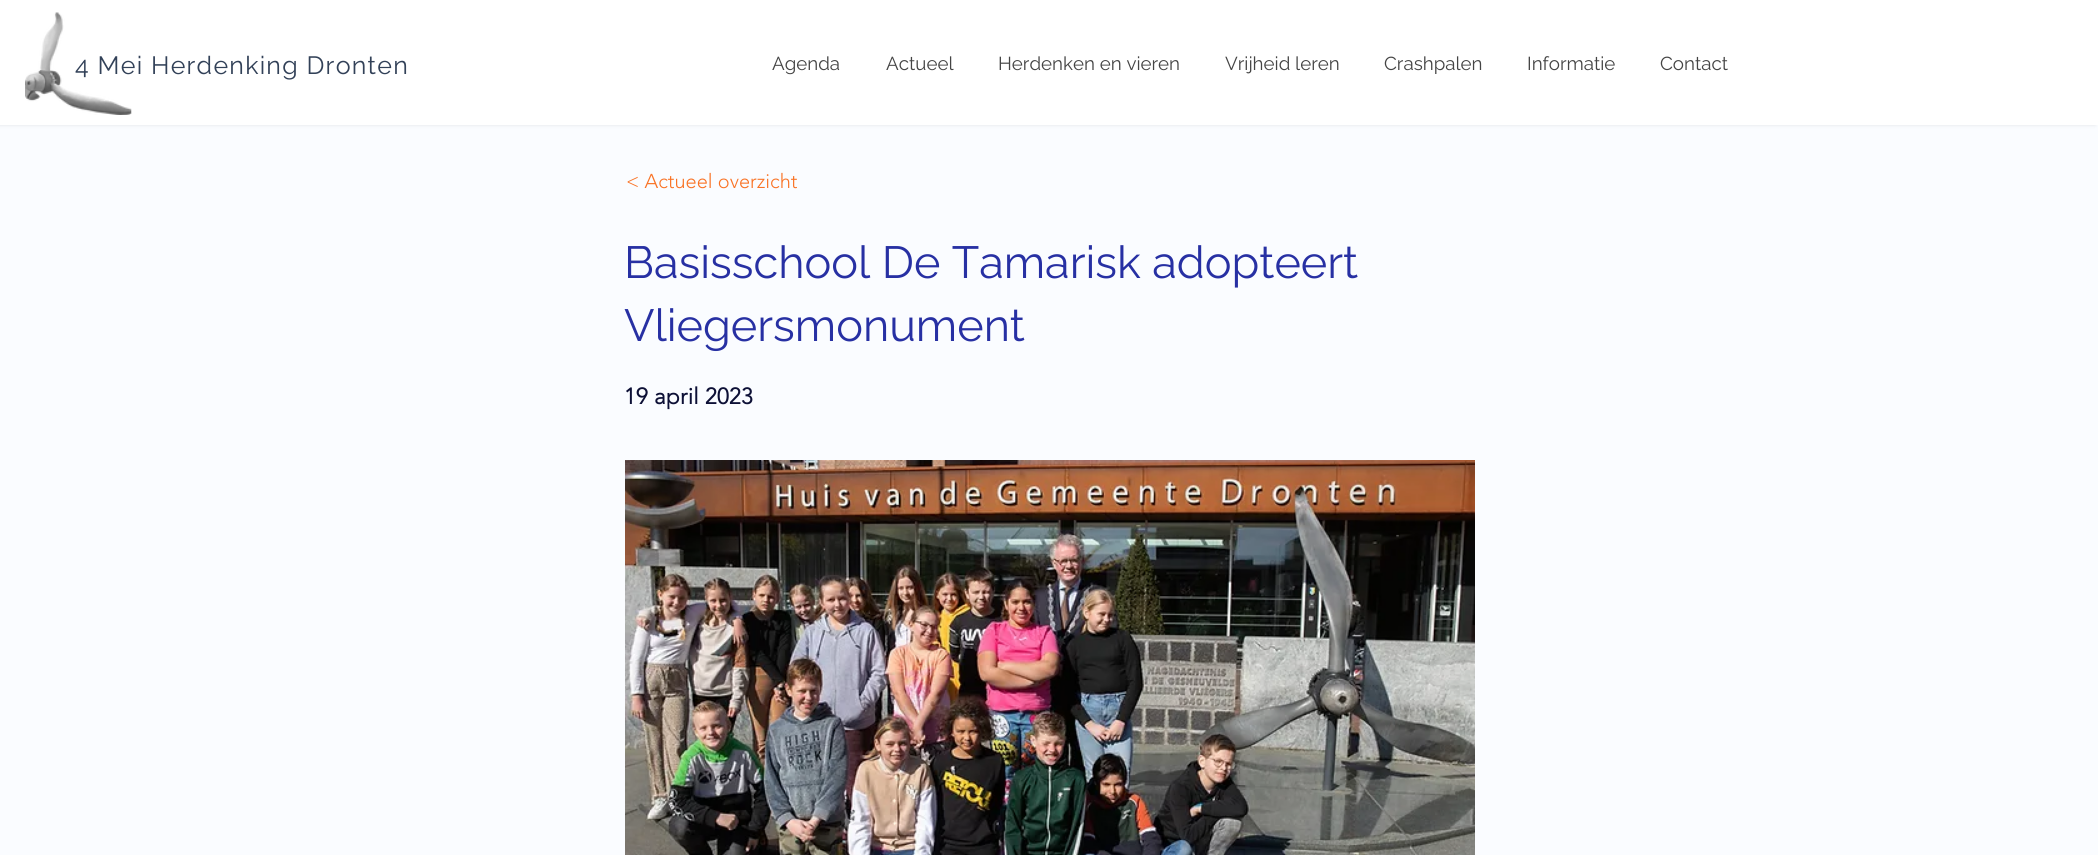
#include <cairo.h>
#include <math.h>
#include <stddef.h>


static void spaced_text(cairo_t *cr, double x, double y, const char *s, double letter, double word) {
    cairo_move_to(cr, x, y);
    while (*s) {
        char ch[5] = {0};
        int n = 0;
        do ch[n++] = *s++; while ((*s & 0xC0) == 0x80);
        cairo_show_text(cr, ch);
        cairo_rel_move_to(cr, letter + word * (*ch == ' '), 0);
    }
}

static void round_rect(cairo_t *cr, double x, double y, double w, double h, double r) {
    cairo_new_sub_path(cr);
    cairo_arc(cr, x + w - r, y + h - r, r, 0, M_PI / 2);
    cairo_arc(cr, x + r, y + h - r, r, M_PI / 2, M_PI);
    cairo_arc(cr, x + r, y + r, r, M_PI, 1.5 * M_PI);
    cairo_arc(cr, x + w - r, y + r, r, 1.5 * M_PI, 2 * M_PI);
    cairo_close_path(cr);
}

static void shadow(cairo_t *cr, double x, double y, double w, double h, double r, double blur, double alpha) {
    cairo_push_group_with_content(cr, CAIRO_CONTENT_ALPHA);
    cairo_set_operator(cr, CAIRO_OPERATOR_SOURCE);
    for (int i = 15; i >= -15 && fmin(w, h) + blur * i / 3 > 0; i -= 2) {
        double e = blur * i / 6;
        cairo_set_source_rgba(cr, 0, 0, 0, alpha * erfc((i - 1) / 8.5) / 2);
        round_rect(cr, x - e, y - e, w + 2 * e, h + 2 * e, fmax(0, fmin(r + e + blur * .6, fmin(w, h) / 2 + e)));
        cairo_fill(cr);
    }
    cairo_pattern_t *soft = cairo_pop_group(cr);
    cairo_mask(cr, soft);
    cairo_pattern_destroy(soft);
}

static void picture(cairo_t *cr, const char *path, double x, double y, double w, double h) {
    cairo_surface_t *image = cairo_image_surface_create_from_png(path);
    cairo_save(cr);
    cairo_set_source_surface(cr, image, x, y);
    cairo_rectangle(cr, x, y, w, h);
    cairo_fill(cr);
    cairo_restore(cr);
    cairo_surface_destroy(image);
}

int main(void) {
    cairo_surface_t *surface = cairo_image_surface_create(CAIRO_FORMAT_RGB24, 2098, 855);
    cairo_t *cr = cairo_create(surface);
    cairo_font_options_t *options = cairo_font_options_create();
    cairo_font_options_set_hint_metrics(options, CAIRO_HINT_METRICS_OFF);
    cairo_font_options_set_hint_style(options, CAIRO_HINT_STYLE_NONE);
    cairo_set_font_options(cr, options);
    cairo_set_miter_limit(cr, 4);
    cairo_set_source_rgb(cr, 0.98, 0.988, 1);
    cairo_paint(cr);
    cairo_set_source_rgb(cr, 0, 0, 0);
    shadow(cr, -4, 0, 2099, 125, 0, 2, 0.1);
    cairo_set_source_rgb(cr, 1, 1, 1);
    cairo_rectangle(cr, 0, 0, 2098, 125);
    cairo_fill(cr);
    picture(cr, "img1.png", 25, 12, 107, 103);
    cairo_select_font_face(cr, "Raleway", CAIRO_FONT_SLANT_NORMAL, CAIRO_FONT_WEIGHT_NORMAL);
    cairo_set_font_size(cr, 25);
    cairo_set_source_rgb(cr, 0.196, 0.255, 0.345);
    spaced_text(cr, 75, 74, "4 Mei Herdenking Dronten", 1.25, 0);
    cairo_set_font_size(cr, 18.75);
    cairo_set_source_rgb(cr, 0.267, 0.267, 0.267);
    cairo_move_to(cr, 772, 70);
    cairo_show_text(cr, "Agenda");
    cairo_move_to(cr, 886, 70);
    cairo_show_text(cr, "Actueel");
    cairo_move_to(cr, 998, 70);
    cairo_show_text(cr, "Herdenken en vieren");
    cairo_move_to(cr, 1225, 70);
    cairo_show_text(cr, "Vrijheid leren");
    cairo_move_to(cr, 1384, 70);
    cairo_show_text(cr, "Crashpalen");
    cairo_move_to(cr, 1527, 70);
    cairo_show_text(cr, "Informatie");
    cairo_move_to(cr, 1660, 70);
    cairo_show_text(cr, "Contact");
    cairo_select_font_face(cr, "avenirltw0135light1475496 Light", CAIRO_FONT_SLANT_NORMAL, CAIRO_FONT_WEIGHT_NORMAL);
    cairo_set_font_size(cr, 20);
    cairo_set_source_rgb(cr, 0.976, 0.447, 0.141);
    cairo_move_to(cr, 626, 188);
    cairo_show_text(cr, "< Actueel overzicht");
    cairo_select_font_face(cr, "Raleway", CAIRO_FONT_SLANT_NORMAL, CAIRO_FONT_WEIGHT_NORMAL);
    cairo_set_font_size(cr, 45);
    cairo_set_source_rgb(cr, 0.153, 0.188, 0.639);
    cairo_move_to(cr, 624, 278);
    cairo_show_text(cr, "Basisschool De Tamarisk adopteert");
    cairo_move_to(cr, 624, 341);
    cairo_show_text(cr, "Vliegersmonument");
    cairo_select_font_face(cr, "avenirltw0135light1475496", CAIRO_FONT_SLANT_NORMAL, CAIRO_FONT_WEIGHT_BOLD);
    cairo_set_font_size(cr, 22.5);
    cairo_set_source_rgb(cr, 0.051, 0.063, 0.212);
    spaced_text(cr, 624, 404, "19 april 2023", 0.25, 0);
    picture(cr, "img2.png", 625, 460, 850, 395);
    cairo_surface_write_to_png(surface, "page.png");
    cairo_font_options_destroy(options);
    cairo_destroy(cr);
    cairo_surface_destroy(surface);
    return 0;
}
